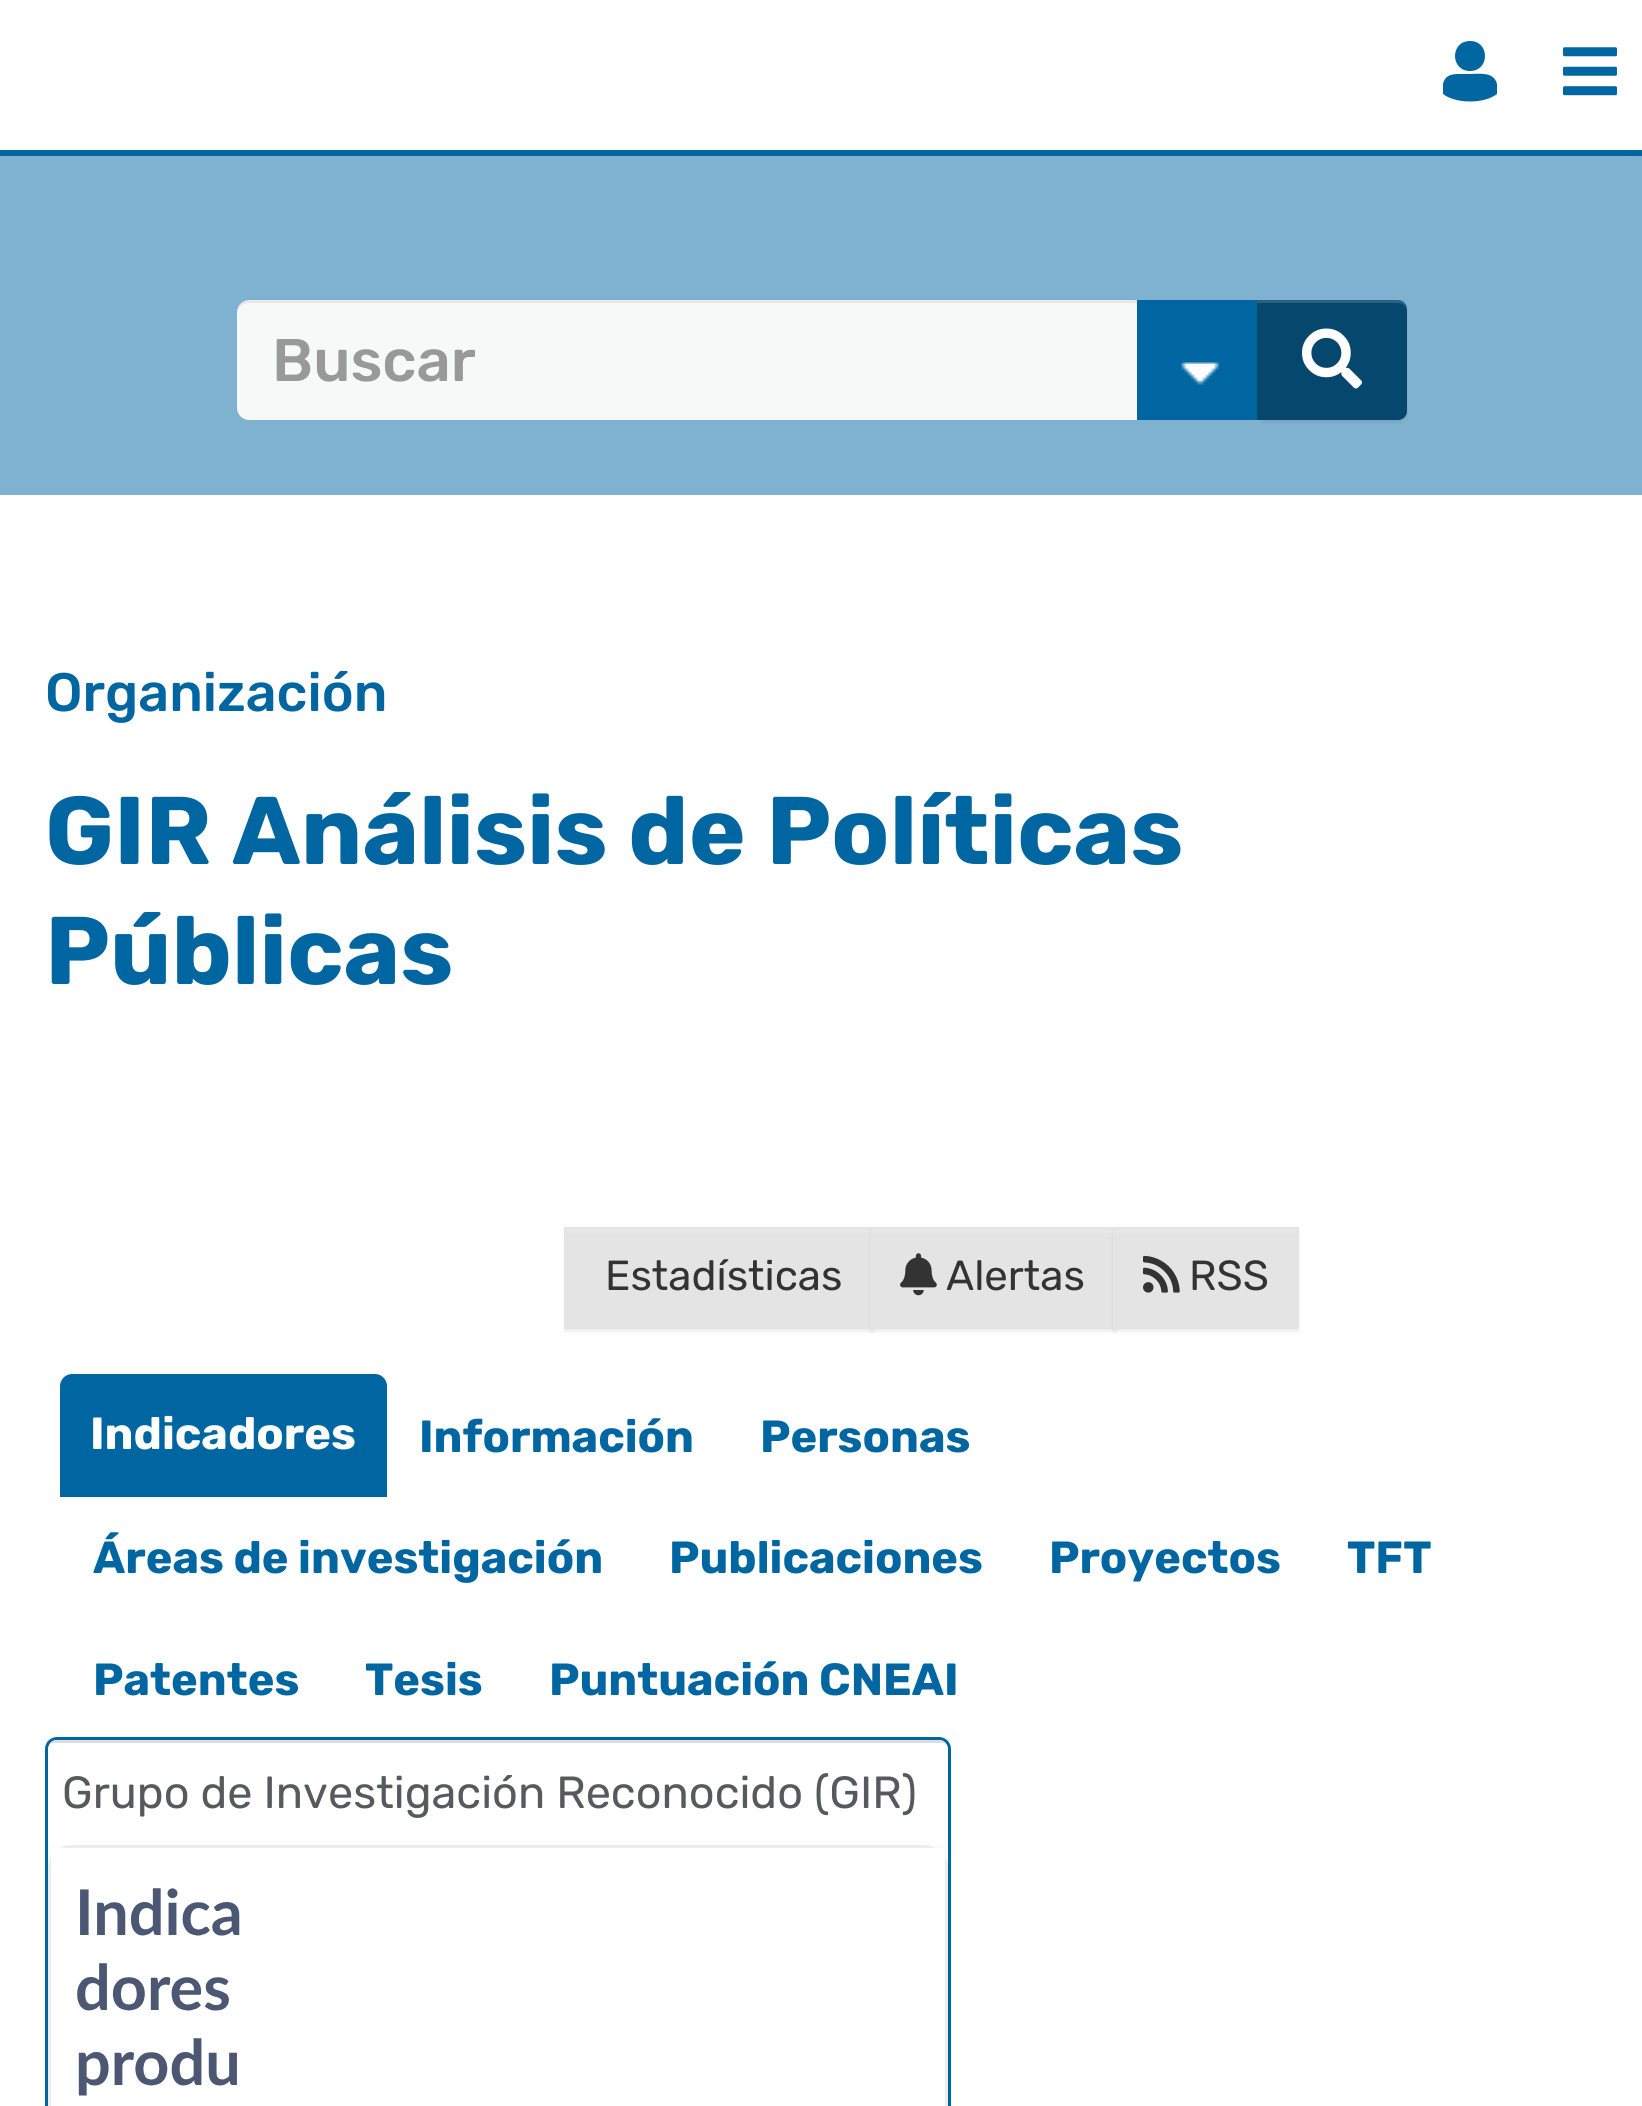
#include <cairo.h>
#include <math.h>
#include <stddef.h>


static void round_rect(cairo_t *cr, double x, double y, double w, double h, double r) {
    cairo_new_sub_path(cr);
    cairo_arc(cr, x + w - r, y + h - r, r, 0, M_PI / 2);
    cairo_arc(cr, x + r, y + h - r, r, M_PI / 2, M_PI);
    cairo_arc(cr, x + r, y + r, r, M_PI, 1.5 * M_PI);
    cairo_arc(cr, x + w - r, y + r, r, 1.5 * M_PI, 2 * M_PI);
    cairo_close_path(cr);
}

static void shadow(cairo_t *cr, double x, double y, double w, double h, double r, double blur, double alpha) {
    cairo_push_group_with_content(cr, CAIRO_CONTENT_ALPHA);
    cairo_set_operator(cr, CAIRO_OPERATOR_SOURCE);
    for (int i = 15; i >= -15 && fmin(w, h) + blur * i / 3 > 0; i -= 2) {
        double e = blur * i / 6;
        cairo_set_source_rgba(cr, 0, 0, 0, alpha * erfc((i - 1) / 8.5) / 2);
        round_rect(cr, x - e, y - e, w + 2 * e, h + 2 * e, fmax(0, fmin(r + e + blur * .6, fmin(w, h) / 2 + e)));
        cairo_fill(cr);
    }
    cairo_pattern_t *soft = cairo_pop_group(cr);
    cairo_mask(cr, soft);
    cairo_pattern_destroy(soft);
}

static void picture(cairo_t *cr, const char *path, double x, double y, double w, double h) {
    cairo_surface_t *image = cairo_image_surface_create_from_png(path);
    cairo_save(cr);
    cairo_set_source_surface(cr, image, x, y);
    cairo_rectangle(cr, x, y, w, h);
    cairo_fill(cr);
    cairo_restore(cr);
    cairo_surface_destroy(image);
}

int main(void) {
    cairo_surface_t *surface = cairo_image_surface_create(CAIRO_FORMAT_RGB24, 1642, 2106);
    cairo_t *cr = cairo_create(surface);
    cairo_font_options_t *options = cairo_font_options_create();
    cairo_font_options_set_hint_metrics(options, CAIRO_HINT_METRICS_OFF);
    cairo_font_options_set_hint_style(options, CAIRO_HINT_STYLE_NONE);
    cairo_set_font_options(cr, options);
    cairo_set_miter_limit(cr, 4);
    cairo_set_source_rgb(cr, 1, 1, 1);
    cairo_paint(cr);
    cairo_set_source_rgb(cr, 0, 0.4, 0.631);
    cairo_rectangle(cr, 0, 150, 1642, 6);
    cairo_fill(cr);
    cairo_new_path(cr);
    cairo_move_to(cr, 1470, 71);
    cairo_curve_to(cr, 1490, 71, 1490, 41, 1470, 41);
    cairo_curve_to(cr, 1450, 41, 1450, 71, 1470, 71);
    cairo_close_path(cr);
    cairo_move_to(cr, 1497, 94);
    cairo_line_to(cr, 1497, 84);
    cairo_curve_to(cr, 1494, 71, 1478, 74, 1469, 74);
    cairo_line_to(cr, 1459, 74);
    cairo_curve_to(cr, 1452, 74, 1445, 75, 1443, 84);
    cairo_line_to(cr, 1443, 94);
    cairo_curve_to(cr, 1456, 104, 1484, 104, 1497, 94);
    cairo_close_path(cr);
    cairo_fill(cr);
    picture(cr, "img1.png", 1563, 47, 54, 49);
    cairo_set_source_rgb(cr, 0.498, 0.698, 0.816);
    cairo_rectangle(cr, 0, 156, 1642, 339);
    cairo_fill(cr);
    cairo_set_source_rgb(cr, 0.965, 0.969, 0.969);
    cairo_new_path(cr);
    cairo_move_to(cr, 249, 300);
    cairo_line_to(cr, 1137, 300);
    cairo_line_to(cr, 1137, 420);
    cairo_line_to(cr, 249, 420);
    cairo_curve_to(cr, 242.5, 420, 237, 414.5, 237, 408);
    cairo_line_to(cr, 237, 312);
    cairo_curve_to(cr, 237, 305.5, 242.5, 300, 249, 300);
    cairo_close_path(cr);
    cairo_fill(cr);
    cairo_set_source_rgba(cr, 0, 0, 0, 0.07);
    cairo_new_path(cr);
    cairo_move_to(cr, 249, 303);
    cairo_line_to(cr, 1137, 303);
    cairo_line_to(cr, 1137, 300);
    cairo_line_to(cr, 249, 300);
    cairo_curve_to(cr, 242, 300, 237, 305, 237, 312);
    cairo_line_to(cr, 237, 315);
    cairo_curve_to(cr, 237, 308, 242, 303, 249, 303);
    cairo_close_path(cr);
    cairo_fill(cr);
    cairo_select_font_face(cr, "Rubik Medium", CAIRO_FONT_SLANT_NORMAL, CAIRO_FONT_WEIGHT_NORMAL);
    cairo_set_font_size(cr, 60);
    cairo_set_source_rgb(cr, 0.6, 0.6, 0.6);
    cairo_move_to(cr, 272, 381);
    cairo_show_text(cr, "Buscar");
    cairo_set_source_rgb(cr, 0, 0.4, 0.631);
    cairo_rectangle(cr, 1137, 300, 120, 120);
    cairo_fill(cr);
    picture(cr, "img2.png", 1181, 362, 39, 23);
    cairo_set_source_rgb(cr, 0, 0, 0);
    shadow(cr, 1257, 303, 150, 120, 9, 1.5, 0.07);
    cairo_set_source_rgb(cr, 0.02, 0.278, 0.427);
    cairo_new_path(cr);
    cairo_move_to(cr, 1257, 300);
    cairo_line_to(cr, 1398, 300);
    cairo_curve_to(cr, 1403, 300, 1407, 304, 1407, 309);
    cairo_line_to(cr, 1407, 411);
    cairo_curve_to(cr, 1407, 416, 1403, 420, 1398, 420);
    cairo_line_to(cr, 1257, 420);
    cairo_close_path(cr);
    cairo_fill(cr);
    cairo_set_source_rgba(cr, 1, 1, 1, 0.15);
    cairo_new_path(cr);
    cairo_move_to(cr, 1257, 303);
    cairo_line_to(cr, 1398, 303);
    cairo_curve_to(cr, 1403, 303, 1407, 307, 1407, 312);
    cairo_line_to(cr, 1407, 309);
    cairo_curve_to(cr, 1407, 304, 1403, 300, 1398, 300);
    cairo_line_to(cr, 1257, 300);
    cairo_close_path(cr);
    cairo_fill(cr);
    picture(cr, "img3.png", 1302, 328, 60, 61);
    cairo_set_font_size(cr, 54);
    cairo_set_source_rgb(cr, 0, 0.4, 0.631);
    cairo_move_to(cr, 45, 711);
    cairo_show_text(cr, "Organización");
    cairo_select_font_face(cr, "Rubik", CAIRO_FONT_SLANT_NORMAL, CAIRO_FONT_WEIGHT_BOLD);
    cairo_set_font_size(cr, 96);
    cairo_move_to(cr, 45, 864);
    cairo_show_text(cr, "GIR Análisis de Políticas");
    cairo_move_to(cr, 45, 984);
    cairo_show_text(cr, "Públicas");
    cairo_set_source_rgb(cr, 0, 0, 0);
    shadow(cr, 564, 1230, 309, 102, 0, 1.5, 0.07);
    cairo_set_source_rgb(cr, 0.894, 0.894, 0.894);
    cairo_rectangle(cr, 564, 1227, 306, 102);
    cairo_fill(cr);
    cairo_set_source_rgb(cr, 0.91, 0.91, 0.91);
    cairo_rectangle(cr, 567, 1230, 303, 3);
    cairo_fill(cr);
    cairo_select_font_face(cr, "Rubik", CAIRO_FONT_SLANT_NORMAL, CAIRO_FONT_WEIGHT_NORMAL);
    cairo_set_font_size(cr, 42);
    cairo_set_source_rgb(cr, 0.2, 0.2, 0.2);
    cairo_move_to(cr, 605, 1290);
    cairo_show_text(cr, "Estadísticas");
    cairo_set_source_rgb(cr, 0, 0, 0);
    shadow(cr, 870, 1230, 246, 102, 0, 1.5, 0.07);
    cairo_set_source_rgb(cr, 0.894, 0.894, 0.894);
    cairo_rectangle(cr, 870, 1227, 243, 102);
    cairo_fill(cr);
    cairo_set_source_rgb(cr, 0.91, 0.91, 0.91);
    cairo_rectangle(cr, 873, 1230, 240, 3);
    cairo_fill(cr);
    picture(cr, "img4.png", 900, 1253, 37, 43);
    cairo_set_source_rgb(cr, 0.2, 0.2, 0.2);
    cairo_move_to(cr, 946, 1290);
    cairo_show_text(cr, "Alertas");
    cairo_set_source_rgb(cr, 0, 0, 0);
    shadow(cr, 1113, 1230, 186, 102, 0, 1.5, 0.07);
    cairo_set_source_rgb(cr, 0.894, 0.894, 0.894);
    cairo_rectangle(cr, 1113, 1227, 186, 102);
    cairo_fill(cr);
    cairo_set_source_rgb(cr, 0.91, 0.91, 0.91);
    cairo_rectangle(cr, 1116, 1230, 180, 3);
    cairo_fill(cr);
    picture(cr, "img5.png", 1143, 1255, 37, 38);
    cairo_set_source_rgb(cr, 0.2, 0.2, 0.2);
    cairo_move_to(cr, 1189, 1290);
    cairo_show_text(cr, "RSS");
    cairo_set_source_rgb(cr, 0, 0.4, 0.631);
    cairo_new_path(cr);
    cairo_move_to(cr, 72, 1374);
    cairo_line_to(cr, 375, 1374);
    cairo_curve_to(cr, 381.5, 1374, 387, 1379.5, 387, 1386);
    cairo_line_to(cr, 387, 1497);
    cairo_line_to(cr, 60, 1497);
    cairo_line_to(cr, 60, 1386);
    cairo_curve_to(cr, 60, 1379.5, 65.5, 1374, 72, 1374);
    cairo_close_path(cr);
    cairo_fill(cr);
    cairo_select_font_face(cr, "Rubik", CAIRO_FONT_SLANT_NORMAL, CAIRO_FONT_WEIGHT_BOLD);
    cairo_set_font_size(cr, 45);
    cairo_set_source_rgb(cr, 1, 1, 1);
    cairo_move_to(cr, 90, 1449);
    cairo_show_text(cr, "Indicadores");
    cairo_set_source_rgb(cr, 0, 0.4, 0.631);
    cairo_move_to(cr, 419, 1452);
    cairo_show_text(cr, "Información");
    cairo_move_to(cr, 760, 1452);
    cairo_show_text(cr, "Personas");
    cairo_move_to(cr, 93, 1573);
    cairo_show_text(cr, "Áreas de investigación");
    cairo_move_to(cr, 669, 1573);
    cairo_show_text(cr, "Publicaciones");
    cairo_move_to(cr, 1049, 1573);
    cairo_show_text(cr, "Proyectos");
    cairo_move_to(cr, 1347, 1573);
    cairo_show_text(cr, "TFT");
    cairo_move_to(cr, 93, 1695);
    cairo_show_text(cr, "Patentes");
    cairo_move_to(cr, 365, 1695);
    cairo_show_text(cr, "Tesis");
    cairo_move_to(cr, 549, 1695);
    cairo_show_text(cr, "Puntuación CNEAI");
    round_rect(cr, 46.5, 1738.5, 903, 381, 10.5);
    cairo_set_line_width(cr, 3);
    cairo_stroke(cr);
    cairo_save(cr);
    round_rect(cr, 48, 1740, 900, 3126, 9);
    cairo_clip(cr);
    cairo_set_source_rgb(cr, 0.867, 0.867, 0.867);
    cairo_rectangle(cr, 48, 1740, 900, 3);
    cairo_fill(cr);
    cairo_restore(cr);
    cairo_select_font_face(cr, "Rubik", CAIRO_FONT_SLANT_NORMAL, CAIRO_FONT_WEIGHT_NORMAL);
    cairo_set_source_rgb(cr, 0.337, 0.353, 0.361);
    cairo_move_to(cr, 62, 1808);
    cairo_show_text(cr, "Grupo de Investigación Reconocido (GIR)");
    picture(cr, "img6.png", 48, 1845, 900, 261);
    cairo_surface_write_to_png(surface, "page.png");
    cairo_font_options_destroy(options);
    cairo_destroy(cr);
    cairo_surface_destroy(surface);
    return 0;
}
